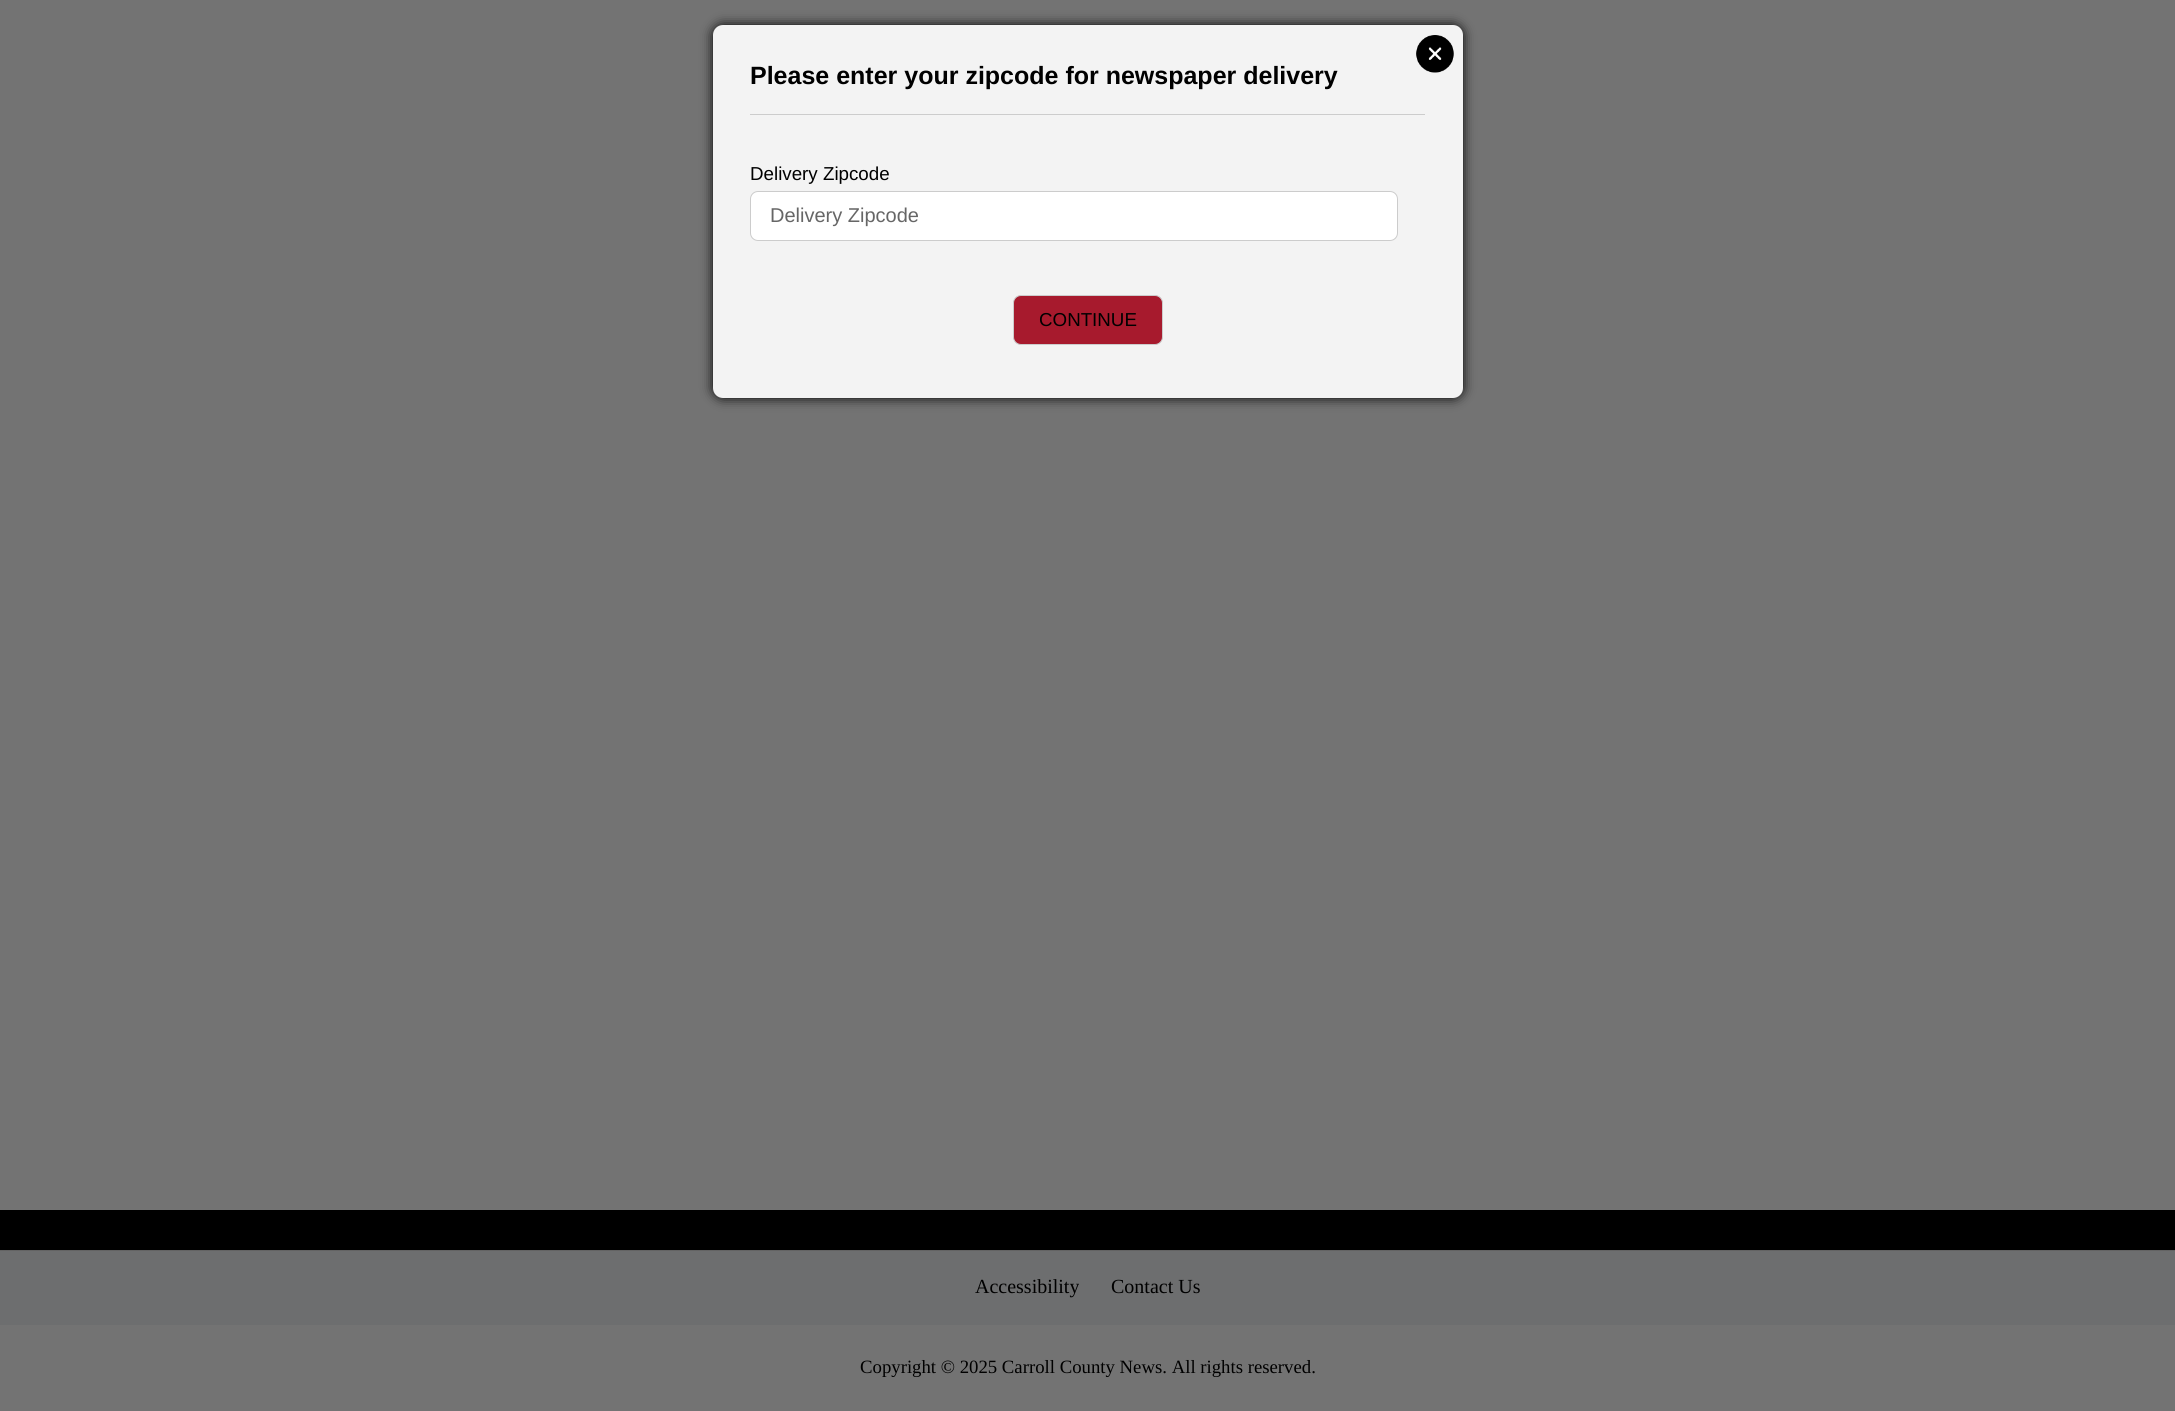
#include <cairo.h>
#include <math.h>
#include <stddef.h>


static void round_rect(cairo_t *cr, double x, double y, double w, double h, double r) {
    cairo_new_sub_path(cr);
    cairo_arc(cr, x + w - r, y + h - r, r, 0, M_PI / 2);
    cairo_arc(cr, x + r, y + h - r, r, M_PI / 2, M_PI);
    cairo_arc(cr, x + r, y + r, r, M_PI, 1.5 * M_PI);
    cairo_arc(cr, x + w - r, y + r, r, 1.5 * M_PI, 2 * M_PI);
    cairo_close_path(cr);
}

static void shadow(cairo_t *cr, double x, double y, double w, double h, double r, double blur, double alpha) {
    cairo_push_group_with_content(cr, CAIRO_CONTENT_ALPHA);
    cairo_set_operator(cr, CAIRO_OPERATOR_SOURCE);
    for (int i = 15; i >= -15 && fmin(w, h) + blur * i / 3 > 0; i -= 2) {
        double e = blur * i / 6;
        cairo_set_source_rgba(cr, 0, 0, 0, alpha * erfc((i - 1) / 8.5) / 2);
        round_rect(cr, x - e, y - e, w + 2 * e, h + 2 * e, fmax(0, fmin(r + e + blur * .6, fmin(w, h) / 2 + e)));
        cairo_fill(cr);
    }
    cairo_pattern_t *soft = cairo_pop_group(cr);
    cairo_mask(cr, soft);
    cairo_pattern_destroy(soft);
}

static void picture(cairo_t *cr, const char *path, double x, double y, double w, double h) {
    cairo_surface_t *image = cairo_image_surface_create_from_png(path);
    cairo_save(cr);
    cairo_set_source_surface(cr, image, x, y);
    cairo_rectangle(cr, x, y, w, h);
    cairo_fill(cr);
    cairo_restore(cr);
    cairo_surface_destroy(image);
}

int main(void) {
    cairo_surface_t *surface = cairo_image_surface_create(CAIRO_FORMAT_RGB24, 2175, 1411);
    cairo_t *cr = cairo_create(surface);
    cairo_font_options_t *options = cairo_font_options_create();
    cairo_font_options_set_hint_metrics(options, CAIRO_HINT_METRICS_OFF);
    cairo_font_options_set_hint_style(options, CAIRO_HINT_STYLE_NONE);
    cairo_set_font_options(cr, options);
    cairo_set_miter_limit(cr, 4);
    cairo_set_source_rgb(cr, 0.451, 0.451, 0.451);
    cairo_paint(cr);
    cairo_set_source_rgb(cr, 0, 0, 0);
    shadow(cr, 713, 25, 750, 373, 10, 6, 1);
    cairo_set_source_rgb(cr, 0.953, 0.953, 0.953);
    round_rect(cr, 713, 25, 750, 373, 10);
    cairo_fill(cr);
    picture(cr, "img1.png", 1416, 35, 38, 38);
    cairo_select_font_face(cr, "Liberation Sans", CAIRO_FONT_SLANT_NORMAL, CAIRO_FONT_WEIGHT_BOLD);
    cairo_set_font_size(cr, 25);
    cairo_set_source_rgb(cr, 0, 0, 0);
    cairo_move_to(cr, 750, 84);
    cairo_show_text(cr, "Please enter your zipcode for newspaper delivery");
    cairo_set_source_rgb(cr, 0.8, 0.8, 0.8);
    cairo_rectangle(cr, 750, 114, 675, 1);
    cairo_fill(cr);
    cairo_select_font_face(cr, "Liberation Sans", CAIRO_FONT_SLANT_NORMAL, CAIRO_FONT_WEIGHT_NORMAL);
    cairo_set_font_size(cr, 18.75);
    cairo_set_source_rgb(cr, 0, 0, 0);
    cairo_move_to(cr, 750, 180);
    cairo_show_text(cr, "Delivery Zipcode");
    cairo_set_source_rgb(cr, 1, 1, 1);
    round_rect(cr, 750.5, 191.5, 647, 49, 7.5);
    cairo_fill_preserve(cr);
    cairo_set_source_rgb(cr, 0.8, 0.8, 0.8);
    cairo_set_line_width(cr, 1);
    cairo_stroke(cr);
    cairo_set_font_size(cr, 20);
    cairo_set_source_rgb(cr, 0.4, 0.4, 0.4);
    cairo_move_to(cr, 770, 222);
    cairo_show_text(cr, "Delivery Zipcode");
    cairo_set_source_rgb(cr, 0.655, 0.102, 0.176);
    round_rect(cr, 1013.5, 295.5, 149, 49, 7.5);
    cairo_fill_preserve(cr);
    cairo_set_source_rgb(cr, 0.8, 0.8, 0.8);
    cairo_stroke(cr);
    cairo_set_font_size(cr, 18.75);
    cairo_set_source_rgb(cr, 0, 0, 0);
    cairo_move_to(cr, 1039, 326);
    cairo_show_text(cr, "CONTINUE");
    cairo_set_source_rgb(cr, 0.427, 0.431, 0.435);
    cairo_rectangle(cr, 0, 1251, 2175, 74);
    cairo_fill(cr);
    cairo_set_source_rgb(cr, 0, 0, 0);
    cairo_rectangle(cr, 0, 1210, 2175, 40);
    cairo_fill(cr);
    cairo_set_source_rgb(cr, 0.388, 0.388, 0.388);
    cairo_rectangle(cr, 0, 1250, 2175, 1);
    cairo_fill(cr);
    cairo_select_font_face(cr, "Liberation Serif", CAIRO_FONT_SLANT_NORMAL, CAIRO_FONT_WEIGHT_NORMAL);
    cairo_set_font_size(cr, 20);
    cairo_set_source_rgb(cr, 0, 0, 0);
    cairo_move_to(cr, 975, 1293);
    cairo_show_text(cr, "Accessibility");
    cairo_move_to(cr, 1111, 1293);
    cairo_show_text(cr, "Contact Us");
    cairo_set_font_size(cr, 18.75);
    cairo_move_to(cr, 860, 1373);
    cairo_show_text(cr, "Copyright © 2025 Carroll County News. All rights reserved.");
    cairo_surface_write_to_png(surface, "page.png");
    cairo_font_options_destroy(options);
    cairo_destroy(cr);
    cairo_surface_destroy(surface);
    return 0;
}
